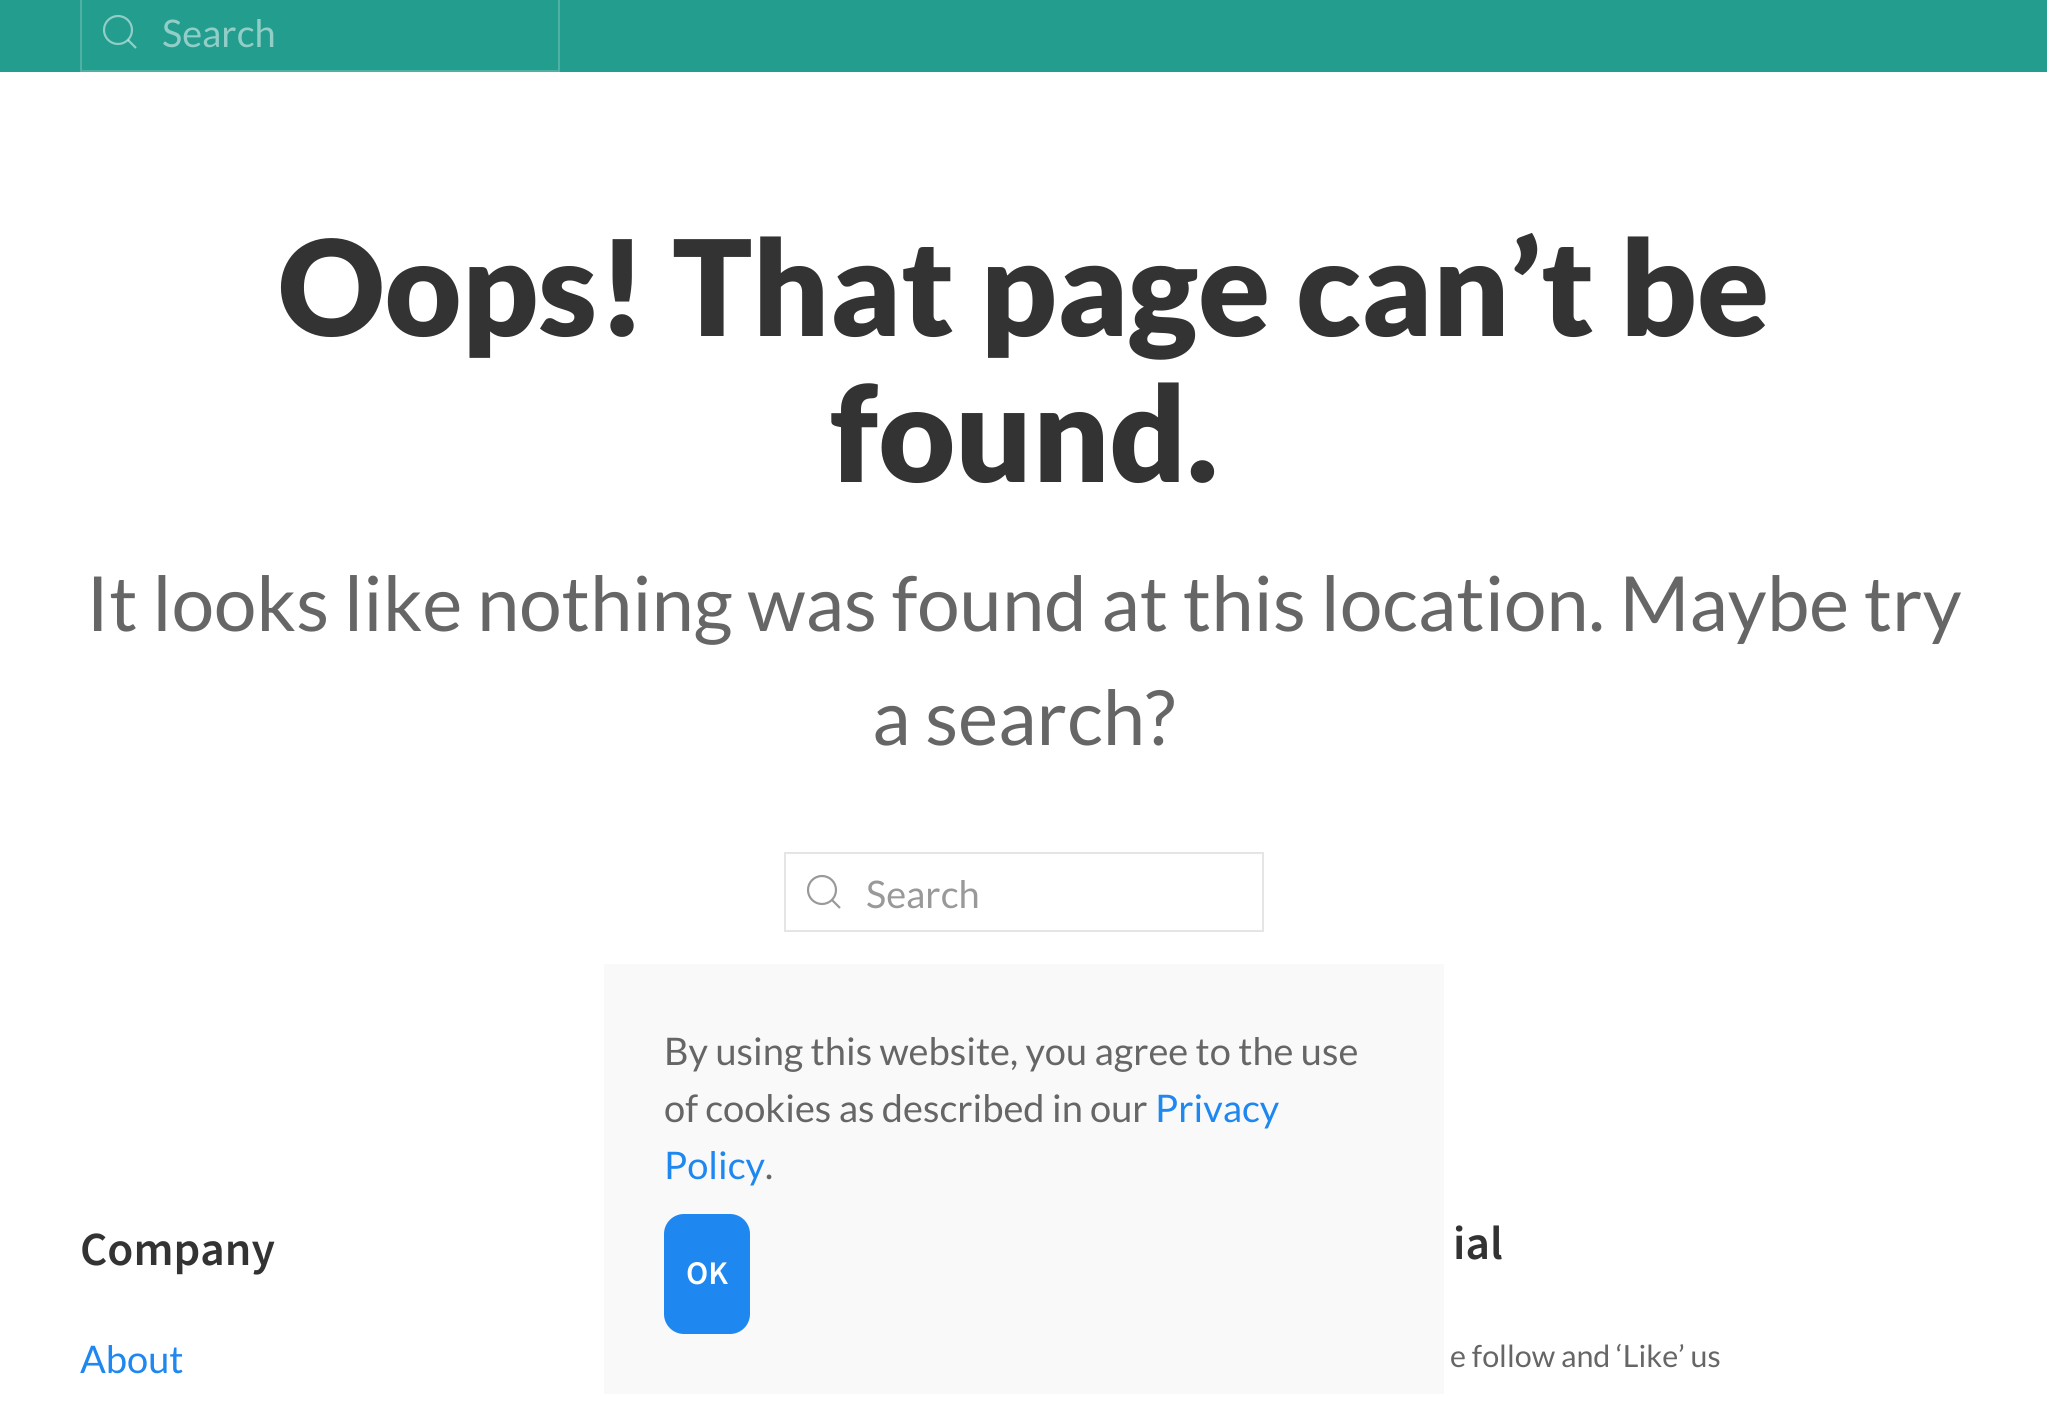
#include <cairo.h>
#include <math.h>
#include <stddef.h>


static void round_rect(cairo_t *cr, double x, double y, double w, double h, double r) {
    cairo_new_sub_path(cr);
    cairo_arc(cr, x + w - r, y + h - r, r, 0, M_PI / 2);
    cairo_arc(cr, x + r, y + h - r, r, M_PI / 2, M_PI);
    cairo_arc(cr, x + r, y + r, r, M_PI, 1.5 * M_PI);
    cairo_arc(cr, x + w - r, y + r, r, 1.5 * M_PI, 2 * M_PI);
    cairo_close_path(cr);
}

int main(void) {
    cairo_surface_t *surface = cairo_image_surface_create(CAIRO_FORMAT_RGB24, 2047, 1424);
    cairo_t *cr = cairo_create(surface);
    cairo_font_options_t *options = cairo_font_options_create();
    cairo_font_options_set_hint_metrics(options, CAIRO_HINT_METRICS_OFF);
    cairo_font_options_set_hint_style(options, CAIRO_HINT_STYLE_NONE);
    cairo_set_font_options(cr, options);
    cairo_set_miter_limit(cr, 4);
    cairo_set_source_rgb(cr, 1, 1, 1);
    cairo_paint(cr);
    cairo_set_source_rgb(cr, 0.137, 0.616, 0.557);
    cairo_rectangle(cr, 0, 0, 2047, 72);
    cairo_fill(cr);
    cairo_rectangle(cr, 81, -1, 478, 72);
    cairo_set_source_rgb(cr, 0.31, 0.694, 0.647);
    cairo_stroke(cr);
    cairo_arc(cr, 118, 30, 14, 0, 2 * M_PI);
    cairo_set_source_rgb(cr, 0.569, 0.808, 0.78);
    cairo_set_line_width(cr, 2.2);
    cairo_stroke(cr);
    cairo_new_path(cr);
    cairo_move_to(cr, 128, 40);
    cairo_line_to(cr, 136, 48);
    cairo_close_path(cr);
    cairo_set_source_rgba(cr, 1, 1, 1, 0.5);
    cairo_stroke(cr);
    cairo_select_font_face(cr, "Lato", CAIRO_FONT_SLANT_NORMAL, CAIRO_FONT_WEIGHT_NORMAL);
    cairo_set_font_size(cr, 38);
    cairo_set_source_rgb(cr, 0.569, 0.808, 0.78);
    cairo_move_to(cr, 162, 47);
    cairo_show_text(cr, "Search");
    cairo_select_font_face(cr, "Lato Black", CAIRO_FONT_SLANT_NORMAL, CAIRO_FONT_WEIGHT_NORMAL);
    cairo_set_font_size(cr, 133);
    cairo_set_source_rgb(cr, 0.2, 0.2, 0.2);
    cairo_move_to(cr, 278, 336);
    cairo_show_text(cr, "Oops! That page can’t be");
    cairo_move_to(cr, 830, 482);
    cairo_show_text(cr, "found.");
    cairo_select_font_face(cr, "Lato", CAIRO_FONT_SLANT_NORMAL, CAIRO_FONT_WEIGHT_NORMAL);
    cairo_set_font_size(cr, 76);
    cairo_set_source_rgb(cr, 0.4, 0.4, 0.4);
    cairo_move_to(cr, 86, 631);
    cairo_show_text(cr, "It looks like nothing was found at this location. Maybe try");
    cairo_move_to(cr, 872, 745);
    cairo_show_text(cr, "a search?");
    cairo_rectangle(cr, 785, 853, 478, 78);
    cairo_set_source_rgb(cr, 0.898, 0.898, 0.898);
    cairo_set_line_width(cr, 2);
    cairo_stroke(cr);
    cairo_arc(cr, 822, 890, 14, 0, 2 * M_PI);
    cairo_set_source_rgb(cr, 0.6, 0.6, 0.6);
    cairo_set_line_width(cr, 2.2);
    cairo_stroke(cr);
    cairo_new_path(cr);
    cairo_move_to(cr, 832, 900);
    cairo_line_to(cr, 840, 908);
    cairo_close_path(cr);
    cairo_stroke(cr);
    cairo_set_font_size(cr, 38);
    cairo_move_to(cr, 866, 908);
    cairo_show_text(cr, "Search");
    cairo_select_font_face(cr, "Source Sans 3 ExtraLight", CAIRO_FONT_SLANT_NORMAL, CAIRO_FONT_WEIGHT_NORMAL);
    cairo_set_font_size(cr, 47.5);
    cairo_set_source_rgb(cr, 0.2, 0.2, 0.2);
    cairo_move_to(cr, 80, 1265);
    cairo_show_text(cr, "Company");
    cairo_select_font_face(cr, "Lato", CAIRO_FONT_SLANT_NORMAL, CAIRO_FONT_WEIGHT_NORMAL);
    cairo_set_font_size(cr, 38);
    cairo_set_source_rgb(cr, 0.118, 0.529, 0.941);
    cairo_move_to(cr, 80, 1373);
    cairo_show_text(cr, "About");
    cairo_select_font_face(cr, "Source Sans 3 ExtraLight", CAIRO_FONT_SLANT_NORMAL, CAIRO_FONT_WEIGHT_NORMAL);
    cairo_set_font_size(cr, 47.5);
    cairo_set_source_rgb(cr, 0.2, 0.2, 0.2);
    cairo_move_to(cr, 1453, 1259);
    cairo_show_text(cr, "ial");
    cairo_select_font_face(cr, "Lato", CAIRO_FONT_SLANT_NORMAL, CAIRO_FONT_WEIGHT_NORMAL);
    cairo_set_font_size(cr, 30.5);
    cairo_set_source_rgb(cr, 0.4, 0.4, 0.4);
    cairo_move_to(cr, 1450, 1367);
    cairo_show_text(cr, "e follow and ‘Like’ us");
    cairo_set_source_rgb(cr, 0.973, 0.973, 0.973);
    cairo_rectangle(cr, 604, 964, 840, 430);
    cairo_fill(cr);
    cairo_set_font_size(cr, 38);
    cairo_set_source_rgb(cr, 0.4, 0.4, 0.4);
    cairo_move_to(cr, 664, 1065);
    cairo_show_text(cr, "By using this website, you agree to the use");
    cairo_move_to(cr, 664, 1122);
    cairo_show_text(cr, "of cookies as described in our");
    cairo_set_source_rgb(cr, 0.118, 0.529, 0.941);
    cairo_move_to(cr, 1155, 1122);
    cairo_show_text(cr, "Privacy");
    cairo_move_to(cr, 664, 1179);
    cairo_show_text(cr, "Policy");
    cairo_set_source_rgb(cr, 0.4, 0.4, 0.4);
    cairo_move_to(cr, 765, 1179);
    cairo_show_text(cr, ".");
    cairo_set_source_rgb(cr, 0.118, 0.529, 0.941);
    round_rect(cr, 664, 1214, 86, 120, 20);
    cairo_fill(cr);
    cairo_select_font_face(cr, "Source Sans 3 ExtraLight", CAIRO_FONT_SLANT_NORMAL, CAIRO_FONT_WEIGHT_NORMAL);
    cairo_set_font_size(cr, 33);
    cairo_set_source_rgb(cr, 1, 1, 1);
    cairo_move_to(cr, 686, 1284);
    cairo_show_text(cr, "OK");
    cairo_surface_write_to_png(surface, "page.png");
    cairo_font_options_destroy(options);
    cairo_destroy(cr);
    cairo_surface_destroy(surface);
    return 0;
}
